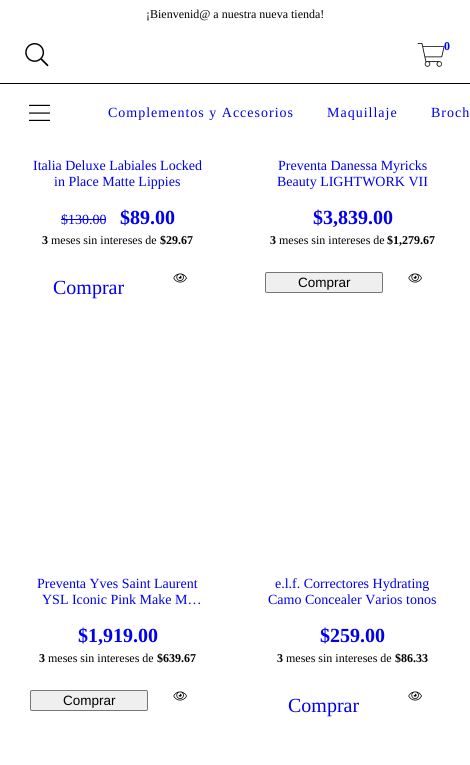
#include <cairo.h>
#include <math.h>
#include <stddef.h>


static void spaced_text(cairo_t *cr, double x, double y, const char *s, double letter, double word) {
    cairo_move_to(cr, x, y);
    while (*s) {
        char ch[5] = {0};
        int n = 0;
        do ch[n++] = *s++; while ((*s & 0xC0) == 0x80);
        cairo_show_text(cr, ch);
        cairo_rel_move_to(cr, letter + word * (*ch == ' '), 0);
    }
}

static void round_rect(cairo_t *cr, double x, double y, double w, double h, double r) {
    cairo_new_sub_path(cr);
    cairo_arc(cr, x + w - r, y + h - r, r, 0, M_PI / 2);
    cairo_arc(cr, x + r, y + h - r, r, M_PI / 2, M_PI);
    cairo_arc(cr, x + r, y + r, r, M_PI, 1.5 * M_PI);
    cairo_arc(cr, x + w - r, y + r, r, 1.5 * M_PI, 2 * M_PI);
    cairo_close_path(cr);
}

static void picture(cairo_t *cr, const char *path, double x, double y, double w, double h) {
    cairo_surface_t *image = cairo_image_surface_create_from_png(path);
    cairo_save(cr);
    cairo_set_source_surface(cr, image, x, y);
    cairo_rectangle(cr, x, y, w, h);
    cairo_fill(cr);
    cairo_restore(cr);
    cairo_surface_destroy(image);
}

int main(void) {
    cairo_surface_t *surface = cairo_image_surface_create(CAIRO_FORMAT_RGB24, 470, 765);
    cairo_t *cr = cairo_create(surface);
    cairo_font_options_t *options = cairo_font_options_create();
    cairo_font_options_set_hint_metrics(options, CAIRO_HINT_METRICS_OFF);
    cairo_font_options_set_hint_style(options, CAIRO_HINT_STYLE_NONE);
    cairo_set_font_options(cr, options);
    cairo_set_miter_limit(cr, 4);
    cairo_set_source_rgb(cr, 1, 1, 1);
    cairo_paint(cr);
    cairo_select_font_face(cr, "Liberation Serif", CAIRO_FONT_SLANT_NORMAL, CAIRO_FONT_WEIGHT_NORMAL);
    cairo_set_font_size(cr, 12);
    cairo_set_source_rgb(cr, 0, 0, 0);
    cairo_move_to(cr, 146, 18);
    cairo_show_text(cr, "¡Bienvenid@ a nuestra nueva tienda!");
    picture(cr, "img1.png", 25, 43, 24, 24);
    picture(cr, "img2.png", 417, 43, 28, 24);
    cairo_select_font_face(cr, "Liberation Serif", CAIRO_FONT_SLANT_NORMAL, CAIRO_FONT_WEIGHT_BOLD);
    cairo_set_source_rgb(cr, 0, 0, 0.933);
    cairo_move_to(cr, 444, 50);
    cairo_show_text(cr, "0");
    cairo_set_source_rgb(cr, 0, 0, 0);
    cairo_rectangle(cr, 0, 83, 470, 1);
    cairo_fill(cr);
    picture(cr, "img3.png", 29, 104, 21, 17);
    cairo_select_font_face(cr, "Liberation Serif", CAIRO_FONT_SLANT_NORMAL, CAIRO_FONT_WEIGHT_NORMAL);
    cairo_set_font_size(cr, 14);
    cairo_set_source_rgb(cr, 0, 0, 0.933);
    spaced_text(cr, 108, 117, "Complementos y Accesorios", 1, 0);
    spaced_text(cr, 327, 117, "Maquillaje", 1, 0);
    spaced_text(cr, 431, 117, "Broch", 1, 0);
    cairo_move_to(cr, 33, 170);
    cairo_show_text(cr, "Italia Deluxe Labiales Locked");
    cairo_move_to(cr, 54, 186);
    cairo_show_text(cr, "in Place Matte Lippies");
    cairo_move_to(cr, 61, 224);
    cairo_show_text(cr, "$130.00");
    cairo_rectangle(cr, 61, 219, 45, 1);
    cairo_fill(cr);
    cairo_select_font_face(cr, "Liberation Serif", CAIRO_FONT_SLANT_NORMAL, CAIRO_FONT_WEIGHT_BOLD);
    cairo_set_font_size(cr, 20);
    cairo_move_to(cr, 120, 224);
    cairo_show_text(cr, "$89.00");
    cairo_set_font_size(cr, 12);
    cairo_set_source_rgb(cr, 0, 0, 0);
    cairo_move_to(cr, 42, 244);
    cairo_show_text(cr, "3");
    cairo_select_font_face(cr, "Liberation Serif", CAIRO_FONT_SLANT_NORMAL, CAIRO_FONT_WEIGHT_NORMAL);
    cairo_move_to(cr, 51, 244);
    cairo_show_text(cr, "meses sin intereses de");
    cairo_select_font_face(cr, "Liberation Serif", CAIRO_FONT_SLANT_NORMAL, CAIRO_FONT_WEIGHT_BOLD);
    cairo_move_to(cr, 160, 244);
    cairo_show_text(cr, "$29.67");
    picture(cr, "img4.png", 173, 273, 14, 10);
    cairo_select_font_face(cr, "Liberation Serif", CAIRO_FONT_SLANT_NORMAL, CAIRO_FONT_WEIGHT_NORMAL);
    cairo_set_font_size(cr, 20);
    cairo_set_source_rgb(cr, 0, 0, 0.933);
    cairo_move_to(cr, 53, 294);
    cairo_show_text(cr, "Comprar");
    cairo_set_font_size(cr, 14);
    cairo_move_to(cr, 278, 170);
    cairo_show_text(cr, "Preventa Danessa Myricks");
    cairo_move_to(cr, 277, 186);
    cairo_show_text(cr, "Beauty LIGHTWORK VII");
    cairo_select_font_face(cr, "Liberation Serif", CAIRO_FONT_SLANT_NORMAL, CAIRO_FONT_WEIGHT_BOLD);
    cairo_set_font_size(cr, 20);
    cairo_move_to(cr, 313, 224);
    cairo_show_text(cr, "$3,839.00");
    cairo_set_font_size(cr, 12);
    cairo_set_source_rgb(cr, 0, 0, 0);
    cairo_move_to(cr, 270, 244);
    cairo_show_text(cr, "3");
    cairo_select_font_face(cr, "Liberation Serif", CAIRO_FONT_SLANT_NORMAL, CAIRO_FONT_WEIGHT_NORMAL);
    cairo_move_to(cr, 279, 244);
    cairo_show_text(cr, "meses sin intereses de");
    cairo_select_font_face(cr, "Liberation Serif", CAIRO_FONT_SLANT_NORMAL, CAIRO_FONT_WEIGHT_BOLD);
    cairo_move_to(cr, 387, 244);
    cairo_show_text(cr, "$1,279.67");
    cairo_set_source_rgb(cr, 0.937, 0.937, 0.937);
    round_rect(cr, 265.5, 272.5, 117, 20, 1.5);
    cairo_fill_preserve(cr);
    cairo_set_source_rgb(cr, 0.463, 0.463, 0.463);
    cairo_set_line_width(cr, 1);
    cairo_stroke(cr);
    cairo_select_font_face(cr, "Liberation Sans", CAIRO_FONT_SLANT_NORMAL, CAIRO_FONT_WEIGHT_NORMAL);
    cairo_set_font_size(cr, 13.5);
    cairo_set_source_rgb(cr, 0, 0, 0);
    cairo_move_to(cr, 298, 287);
    cairo_show_text(cr, "Comprar");
    picture(cr, "img4.png", 408, 273, 14, 10);
    cairo_select_font_face(cr, "Liberation Serif", CAIRO_FONT_SLANT_NORMAL, CAIRO_FONT_WEIGHT_NORMAL);
    cairo_set_font_size(cr, 14);
    cairo_set_source_rgb(cr, 0, 0, 0.933);
    cairo_move_to(cr, 37, 588);
    cairo_show_text(cr, "Preventa Yves Saint Laurent");
    cairo_move_to(cr, 42, 604);
    cairo_show_text(cr, "YSL Iconic Pink Make M…");
    cairo_select_font_face(cr, "Liberation Serif", CAIRO_FONT_SLANT_NORMAL, CAIRO_FONT_WEIGHT_BOLD);
    cairo_set_font_size(cr, 20);
    cairo_move_to(cr, 78, 642);
    cairo_show_text(cr, "$1,919.00");
    cairo_set_font_size(cr, 12);
    cairo_set_source_rgb(cr, 0, 0, 0);
    cairo_move_to(cr, 39, 662);
    cairo_show_text(cr, "3");
    cairo_select_font_face(cr, "Liberation Serif", CAIRO_FONT_SLANT_NORMAL, CAIRO_FONT_WEIGHT_NORMAL);
    cairo_move_to(cr, 48, 662);
    cairo_show_text(cr, "meses sin intereses de");
    cairo_select_font_face(cr, "Liberation Serif", CAIRO_FONT_SLANT_NORMAL, CAIRO_FONT_WEIGHT_BOLD);
    cairo_move_to(cr, 157, 662);
    cairo_show_text(cr, "$639.67");
    cairo_set_source_rgb(cr, 0.937, 0.937, 0.937);
    round_rect(cr, 30.5, 690.5, 117, 20, 1.5);
    cairo_fill_preserve(cr);
    cairo_set_source_rgb(cr, 0.463, 0.463, 0.463);
    cairo_stroke(cr);
    cairo_select_font_face(cr, "Liberation Sans", CAIRO_FONT_SLANT_NORMAL, CAIRO_FONT_WEIGHT_NORMAL);
    cairo_set_font_size(cr, 13.5);
    cairo_set_source_rgb(cr, 0, 0, 0);
    cairo_move_to(cr, 63, 705);
    cairo_show_text(cr, "Comprar");
    picture(cr, "img4.png", 173, 691, 14, 10);
    cairo_select_font_face(cr, "Liberation Serif", CAIRO_FONT_SLANT_NORMAL, CAIRO_FONT_WEIGHT_NORMAL);
    cairo_set_font_size(cr, 14);
    cairo_set_source_rgb(cr, 0, 0, 0.933);
    cairo_move_to(cr, 275, 588);
    cairo_show_text(cr, "e.l.f. Correctores Hydrating");
    cairo_move_to(cr, 268, 604);
    cairo_show_text(cr, "Camo Concealer Varios tonos");
    cairo_select_font_face(cr, "Liberation Serif", CAIRO_FONT_SLANT_NORMAL, CAIRO_FONT_WEIGHT_BOLD);
    cairo_set_font_size(cr, 20);
    cairo_move_to(cr, 320, 642);
    cairo_show_text(cr, "$259.00");
    cairo_set_font_size(cr, 12);
    cairo_set_source_rgb(cr, 0, 0, 0);
    cairo_move_to(cr, 277, 662);
    cairo_show_text(cr, "3");
    cairo_select_font_face(cr, "Liberation Serif", CAIRO_FONT_SLANT_NORMAL, CAIRO_FONT_WEIGHT_NORMAL);
    cairo_move_to(cr, 286, 662);
    cairo_show_text(cr, "meses sin intereses de");
    cairo_select_font_face(cr, "Liberation Serif", CAIRO_FONT_SLANT_NORMAL, CAIRO_FONT_WEIGHT_BOLD);
    cairo_move_to(cr, 395, 662);
    cairo_show_text(cr, "$86.33");
    picture(cr, "img4.png", 408, 691, 14, 10);
    cairo_select_font_face(cr, "Liberation Serif", CAIRO_FONT_SLANT_NORMAL, CAIRO_FONT_WEIGHT_NORMAL);
    cairo_set_font_size(cr, 20);
    cairo_set_source_rgb(cr, 0, 0, 0.933);
    cairo_move_to(cr, 288, 712);
    cairo_show_text(cr, "Comprar");
    cairo_surface_write_to_png(surface, "page.png");
    cairo_font_options_destroy(options);
    cairo_destroy(cr);
    cairo_surface_destroy(surface);
    return 0;
}
